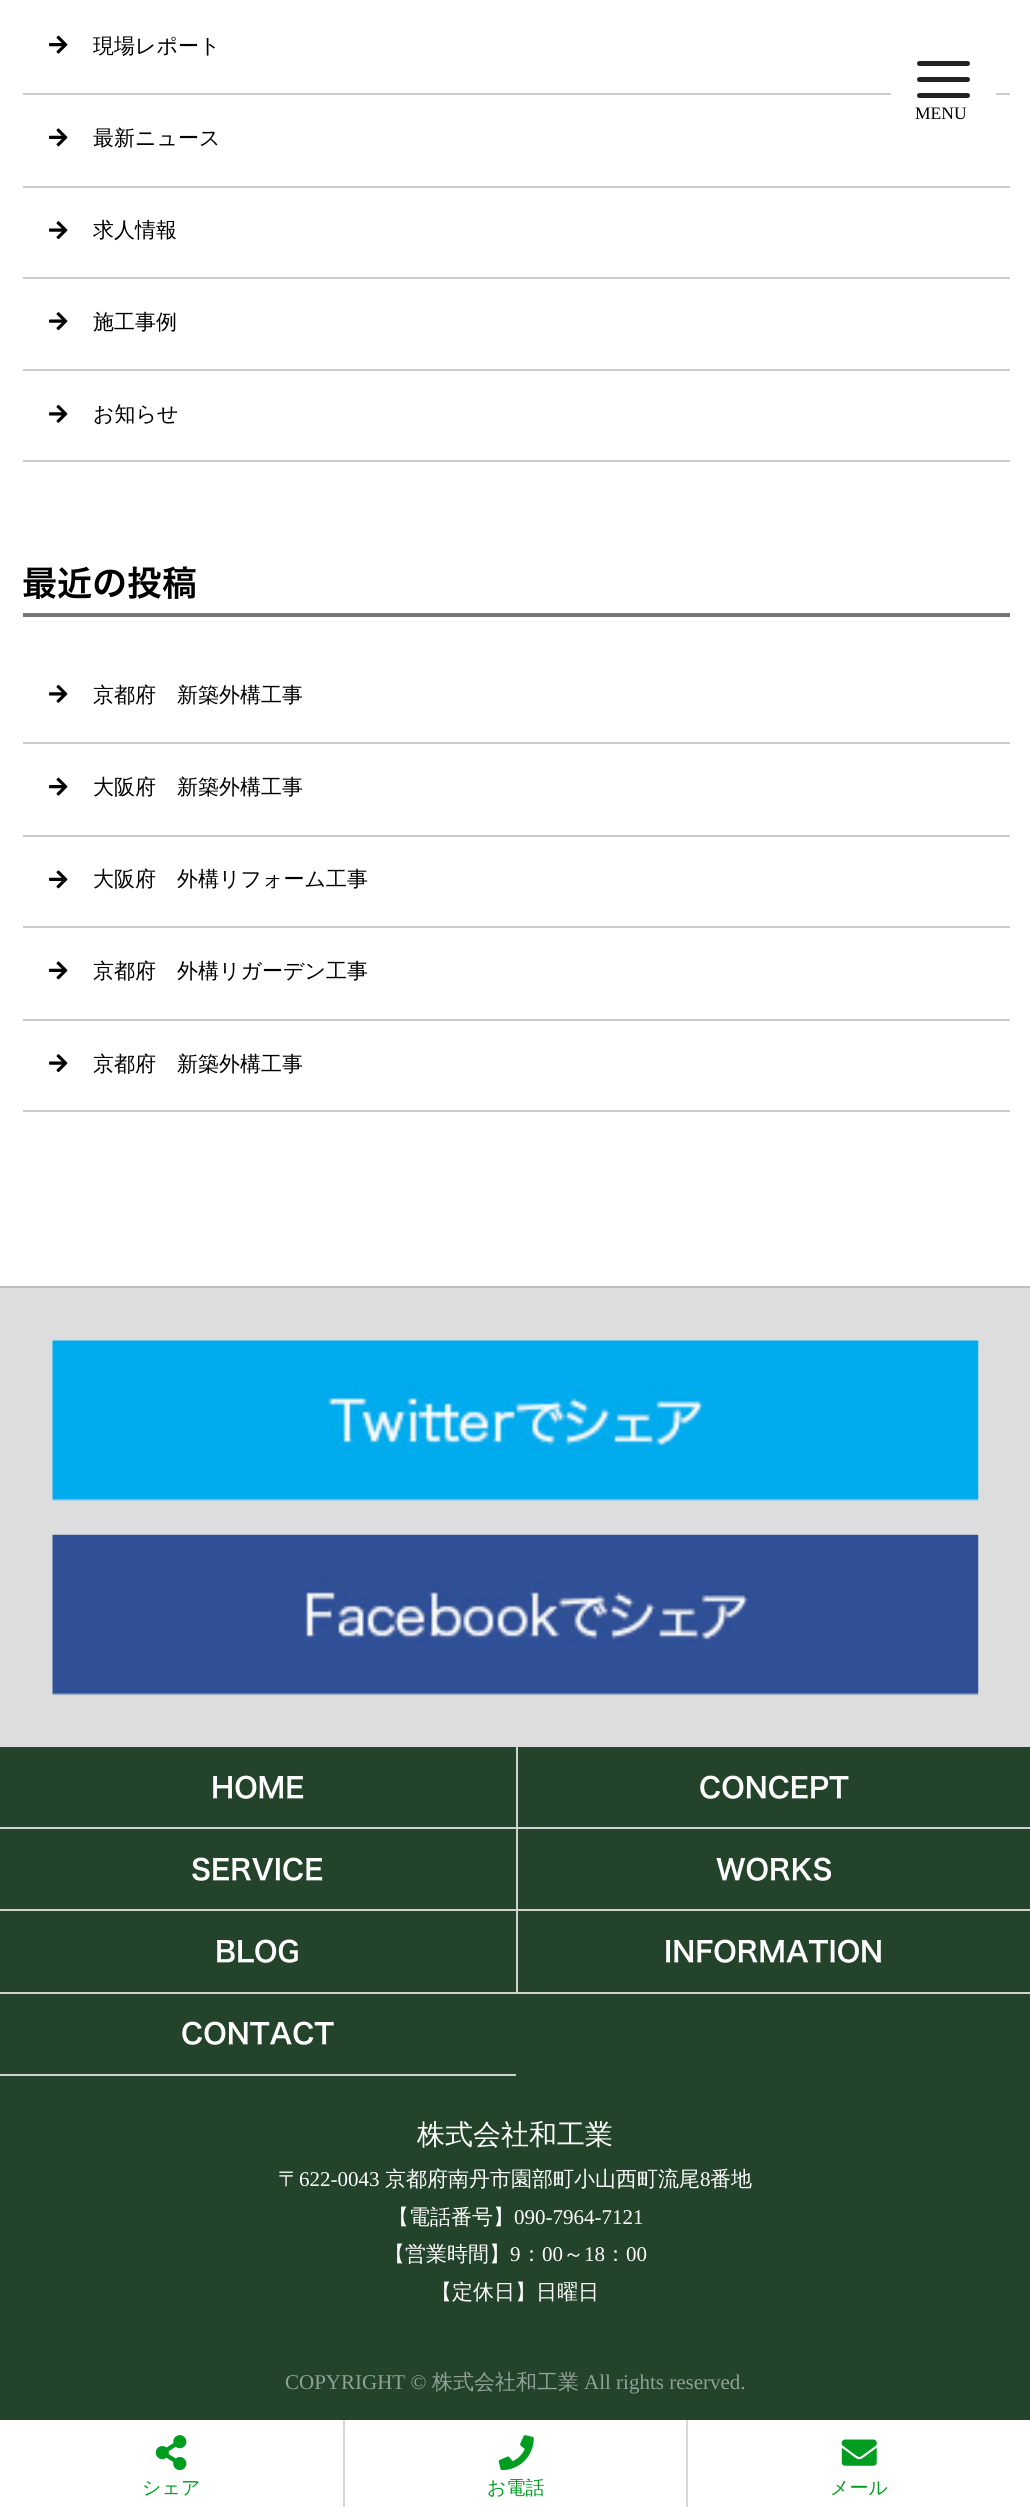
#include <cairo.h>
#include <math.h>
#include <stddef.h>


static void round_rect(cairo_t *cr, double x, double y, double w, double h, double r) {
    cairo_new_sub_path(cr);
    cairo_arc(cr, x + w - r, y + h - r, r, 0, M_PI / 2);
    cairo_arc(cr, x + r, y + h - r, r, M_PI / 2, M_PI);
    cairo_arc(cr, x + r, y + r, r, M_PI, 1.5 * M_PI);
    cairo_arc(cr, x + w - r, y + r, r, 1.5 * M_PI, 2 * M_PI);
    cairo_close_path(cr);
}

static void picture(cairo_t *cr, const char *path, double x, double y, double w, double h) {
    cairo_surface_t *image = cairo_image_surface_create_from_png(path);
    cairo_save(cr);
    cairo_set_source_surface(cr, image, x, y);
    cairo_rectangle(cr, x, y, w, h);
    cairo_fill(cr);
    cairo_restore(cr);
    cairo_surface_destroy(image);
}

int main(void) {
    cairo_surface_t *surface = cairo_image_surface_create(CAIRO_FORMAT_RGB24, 1030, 2507);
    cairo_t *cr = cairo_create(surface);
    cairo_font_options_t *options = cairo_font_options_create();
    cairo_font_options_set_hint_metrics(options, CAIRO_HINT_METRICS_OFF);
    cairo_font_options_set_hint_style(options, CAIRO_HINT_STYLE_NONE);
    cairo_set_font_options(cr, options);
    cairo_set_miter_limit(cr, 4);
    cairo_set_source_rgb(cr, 1, 1, 1);
    cairo_paint(cr);
    cairo_set_source_rgb(cr, 0.8, 0.8, 0.8);
    cairo_rectangle(cr, 23, 93, 987, 2);
    cairo_fill(cr);
    picture(cr, "img1.png", 49, 35, 19, 19);
    cairo_select_font_face(cr, "WenQuanYi Zen Hei Medium", CAIRO_FONT_SLANT_NORMAL, CAIRO_FONT_WEIGHT_NORMAL);
    cairo_set_font_size(cr, 21);
    cairo_set_source_rgb(cr, 0, 0, 0);
    cairo_move_to(cr, 93, 53);
    cairo_show_text(cr, "現場レポート");
    cairo_set_source_rgb(cr, 0.8, 0.8, 0.8);
    cairo_rectangle(cr, 23, 186, 987, 2);
    cairo_fill(cr);
    picture(cr, "img2.png", 49, 128, 19, 19);
    cairo_set_source_rgb(cr, 0, 0, 0);
    cairo_move_to(cr, 93, 145);
    cairo_show_text(cr, "最新ニュース");
    cairo_set_source_rgb(cr, 0.8, 0.8, 0.8);
    cairo_rectangle(cr, 23, 277, 987, 2);
    cairo_fill(cr);
    picture(cr, "img3.png", 49, 221, 19, 19);
    cairo_set_source_rgb(cr, 0, 0, 0);
    cairo_move_to(cr, 93, 237);
    cairo_show_text(cr, "求人情報");
    cairo_set_source_rgb(cr, 0.8, 0.8, 0.8);
    cairo_rectangle(cr, 23, 369, 987, 2);
    cairo_fill(cr);
    picture(cr, "img3.png", 49, 312, 19, 19);
    cairo_set_source_rgb(cr, 0, 0, 0);
    cairo_move_to(cr, 93, 329);
    cairo_show_text(cr, "施工事例");
    cairo_set_source_rgb(cr, 0.8, 0.8, 0.8);
    cairo_rectangle(cr, 23, 460, 987, 2);
    cairo_fill(cr);
    picture(cr, "img4.png", 49, 404, 19, 19);
    cairo_set_source_rgb(cr, 0, 0, 0);
    cairo_move_to(cr, 93, 421);
    cairo_show_text(cr, "お知らせ");
    cairo_set_source_rgb(cr, 0.467, 0.467, 0.467);
    cairo_rectangle(cr, 23, 613, 987, 4);
    cairo_fill(cr);
    cairo_select_font_face(cr, "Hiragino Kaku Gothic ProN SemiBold", CAIRO_FONT_SLANT_NORMAL, CAIRO_FONT_WEIGHT_NORMAL);
    cairo_set_font_size(cr, 35);
    cairo_set_source_rgb(cr, 0, 0, 0);
    cairo_move_to(cr, 22, 596);
    cairo_show_text(cr, "最近の投稿");
    cairo_set_source_rgb(cr, 0.8, 0.8, 0.8);
    cairo_rectangle(cr, 23, 742, 987, 2);
    cairo_fill(cr);
    picture(cr, "img4.png", 49, 684, 19, 19);
    cairo_select_font_face(cr, "WenQuanYi Zen Hei Medium", CAIRO_FONT_SLANT_NORMAL, CAIRO_FONT_WEIGHT_NORMAL);
    cairo_set_font_size(cr, 21);
    cairo_set_source_rgb(cr, 0, 0, 0);
    cairo_move_to(cr, 93, 702);
    cairo_show_text(cr, "京都府　新築外構工事");
    cairo_set_source_rgb(cr, 0.8, 0.8, 0.8);
    cairo_rectangle(cr, 23, 835, 987, 2);
    cairo_fill(cr);
    picture(cr, "img1.png", 49, 777, 19, 19);
    cairo_set_source_rgb(cr, 0, 0, 0);
    cairo_move_to(cr, 93, 794);
    cairo_show_text(cr, "大阪府　新築外構工事");
    cairo_set_source_rgb(cr, 0.8, 0.8, 0.8);
    cairo_rectangle(cr, 23, 926, 987, 2);
    cairo_fill(cr);
    picture(cr, "img2.png", 49, 870, 19, 19);
    cairo_set_source_rgb(cr, 0, 0, 0);
    cairo_move_to(cr, 93, 886);
    cairo_show_text(cr, "大阪府　外構リフォーム工事");
    cairo_set_source_rgb(cr, 0.8, 0.8, 0.8);
    cairo_rectangle(cr, 23, 1019, 987, 2);
    cairo_fill(cr);
    picture(cr, "img2.png", 49, 961, 19, 19);
    cairo_set_source_rgb(cr, 0, 0, 0);
    cairo_move_to(cr, 93, 978);
    cairo_show_text(cr, "京都府　外構リガーデン工事");
    cairo_set_source_rgb(cr, 0.8, 0.8, 0.8);
    cairo_rectangle(cr, 23, 1110, 987, 2);
    cairo_fill(cr);
    picture(cr, "img3.png", 49, 1054, 19, 19);
    cairo_set_source_rgb(cr, 0, 0, 0);
    cairo_move_to(cr, 93, 1071);
    cairo_show_text(cr, "京都府　新築外構工事");
    cairo_set_source_rgb(cr, 1, 1, 1);
    cairo_rectangle(cr, 891, 93, 105, 2);
    cairo_fill(cr);
    cairo_set_source_rgb(cr, 0.133, 0.133, 0.133);
    round_rect(cr, 917, 61, 53, 5, 2.5);
    cairo_fill(cr);
    round_rect(cr, 917, 77, 53, 5, 2.5);
    cairo_fill(cr);
    round_rect(cr, 917, 93, 53, 5, 2.5);
    cairo_fill(cr);
    cairo_select_font_face(cr, "Liberation Serif", CAIRO_FONT_SLANT_NORMAL, CAIRO_FONT_WEIGHT_NORMAL);
    cairo_set_font_size(cr, 17.5);
    cairo_set_source_rgb(cr, 0, 0, 0);
    cairo_move_to(cr, 915, 119);
    cairo_show_text(cr, "MENU");
    cairo_set_source_rgb(cr, 0.867, 0.867, 0.867);
    cairo_rectangle(cr, 0, 1288, 1030, 459);
    cairo_fill(cr);
    cairo_set_source_rgb(cr, 0.749, 0.749, 0.749);
    cairo_rectangle(cr, 0, 1286, 1030, 2);
    cairo_fill(cr);
    picture(cr, "img5.png", 52, 1340, 927, 161);
    picture(cr, "img6.png", 52, 1534, 927, 162);
    cairo_set_source_rgb(cr, 0.137, 0.263, 0.165);
    cairo_rectangle(cr, 0, 1747, 1030, 673);
    cairo_fill(cr);
    cairo_set_source_rgb(cr, 0.82, 0.82, 0.82);
    cairo_rectangle(cr, 0, 1827, 1030, 2);
    cairo_fill(cr);
    cairo_select_font_face(cr, "Hiragino Kaku Gothic ProN SemiBold", CAIRO_FONT_SLANT_NORMAL, CAIRO_FONT_WEIGHT_NORMAL);
    cairo_set_font_size(cr, 28);
    cairo_set_source_rgb(cr, 1, 1, 1);
    cairo_move_to(cr, 211, 1798);
    cairo_show_text(cr, "HOME");
    cairo_set_source_rgb(cr, 0.82, 0.82, 0.82);
    cairo_rectangle(cr, 516, 1747, 2, 82);
    cairo_fill(cr);
    cairo_set_source_rgb(cr, 1, 1, 1);
    cairo_move_to(cr, 699, 1798);
    cairo_show_text(cr, "CONCEPT");
    cairo_set_source_rgb(cr, 0.82, 0.82, 0.82);
    cairo_rectangle(cr, 0, 1909, 1030, 2);
    cairo_fill(cr);
    cairo_set_source_rgb(cr, 1, 1, 1);
    cairo_move_to(cr, 191, 1880);
    cairo_show_text(cr, "SERVICE");
    cairo_set_source_rgb(cr, 0.82, 0.82, 0.82);
    cairo_rectangle(cr, 516, 1829, 2, 82);
    cairo_fill(cr);
    cairo_set_source_rgb(cr, 1, 1, 1);
    cairo_move_to(cr, 716, 1880);
    cairo_show_text(cr, "WORKS");
    cairo_set_source_rgb(cr, 0.82, 0.82, 0.82);
    cairo_rectangle(cr, 0, 1992, 1030, 2);
    cairo_fill(cr);
    cairo_set_source_rgb(cr, 1, 1, 1);
    cairo_move_to(cr, 215, 1962);
    cairo_show_text(cr, "BLOG");
    cairo_set_source_rgb(cr, 0.82, 0.82, 0.82);
    cairo_rectangle(cr, 516, 1911, 2, 82);
    cairo_fill(cr);
    cairo_set_source_rgb(cr, 1, 1, 1);
    cairo_move_to(cr, 664, 1962);
    cairo_show_text(cr, "INFORMATION");
    cairo_set_source_rgb(cr, 0.82, 0.82, 0.82);
    cairo_rectangle(cr, 0, 2074, 516, 2);
    cairo_fill(cr);
    cairo_set_source_rgb(cr, 1, 1, 1);
    cairo_move_to(cr, 181, 2044);
    cairo_show_text(cr, "CONTACT");
    cairo_select_font_face(cr, "WenQuanYi Zen Hei Medium", CAIRO_FONT_SLANT_NORMAL, CAIRO_FONT_WEIGHT_NORMAL);
    cairo_move_to(cr, 417, 2144);
    cairo_show_text(cr, "株式会社和工業");
    cairo_set_font_size(cr, 21);
    cairo_move_to(cr, 278, 2186);
    cairo_show_text(cr, "〒");
    cairo_select_font_face(cr, "Liberation Serif", CAIRO_FONT_SLANT_NORMAL, CAIRO_FONT_WEIGHT_NORMAL);
    cairo_move_to(cr, 299, 2186);
    cairo_show_text(cr, "622-0043");
    cairo_select_font_face(cr, "WenQuanYi Zen Hei Medium", CAIRO_FONT_SLANT_NORMAL, CAIRO_FONT_WEIGHT_NORMAL);
    cairo_move_to(cr, 385, 2186);
    cairo_show_text(cr, "京都府南丹市園部町小山西町流尾");
    cairo_select_font_face(cr, "Liberation Serif", CAIRO_FONT_SLANT_NORMAL, CAIRO_FONT_WEIGHT_NORMAL);
    cairo_move_to(cr, 700, 2186);
    cairo_show_text(cr, "8");
    cairo_select_font_face(cr, "WenQuanYi Zen Hei Medium", CAIRO_FONT_SLANT_NORMAL, CAIRO_FONT_WEIGHT_NORMAL);
    cairo_move_to(cr, 710, 2186);
    cairo_show_text(cr, "番地");
    cairo_move_to(cr, 388, 2224);
    cairo_show_text(cr, "【電話番号】");
    cairo_select_font_face(cr, "Liberation Serif", CAIRO_FONT_SLANT_NORMAL, CAIRO_FONT_WEIGHT_NORMAL);
    cairo_move_to(cr, 514, 2224);
    cairo_show_text(cr, "090-7964-7121");
    cairo_select_font_face(cr, "WenQuanYi Zen Hei Medium", CAIRO_FONT_SLANT_NORMAL, CAIRO_FONT_WEIGHT_NORMAL);
    cairo_move_to(cr, 384, 2261);
    cairo_show_text(cr, "【営業時間】");
    cairo_select_font_face(cr, "Liberation Serif", CAIRO_FONT_SLANT_NORMAL, CAIRO_FONT_WEIGHT_NORMAL);
    cairo_move_to(cr, 510, 2261);
    cairo_show_text(cr, "9");
    cairo_select_font_face(cr, "WenQuanYi Zen Hei Medium", CAIRO_FONT_SLANT_NORMAL, CAIRO_FONT_WEIGHT_NORMAL);
    cairo_move_to(cr, 521, 2261);
    cairo_show_text(cr, "：");
    cairo_select_font_face(cr, "Liberation Serif", CAIRO_FONT_SLANT_NORMAL, CAIRO_FONT_WEIGHT_NORMAL);
    cairo_move_to(cr, 542, 2261);
    cairo_show_text(cr, "00");
    cairo_select_font_face(cr, "WenQuanYi Zen Hei Medium", CAIRO_FONT_SLANT_NORMAL, CAIRO_FONT_WEIGHT_NORMAL);
    cairo_move_to(cr, 563, 2261);
    cairo_show_text(cr, "～");
    cairo_select_font_face(cr, "Liberation Serif", CAIRO_FONT_SLANT_NORMAL, CAIRO_FONT_WEIGHT_NORMAL);
    cairo_move_to(cr, 584, 2261);
    cairo_show_text(cr, "18");
    cairo_select_font_face(cr, "WenQuanYi Zen Hei Medium", CAIRO_FONT_SLANT_NORMAL, CAIRO_FONT_WEIGHT_NORMAL);
    cairo_move_to(cr, 605, 2261);
    cairo_show_text(cr, "：");
    cairo_select_font_face(cr, "Liberation Serif", CAIRO_FONT_SLANT_NORMAL, CAIRO_FONT_WEIGHT_NORMAL);
    cairo_move_to(cr, 626, 2261);
    cairo_show_text(cr, "00");
    cairo_select_font_face(cr, "WenQuanYi Zen Hei Medium", CAIRO_FONT_SLANT_NORMAL, CAIRO_FONT_WEIGHT_NORMAL);
    cairo_move_to(cr, 431, 2299);
    cairo_show_text(cr, "【定休日】日曜日");
    cairo_select_font_face(cr, "Liberation Serif", CAIRO_FONT_SLANT_NORMAL, CAIRO_FONT_WEIGHT_NORMAL);
    cairo_set_source_rgb(cr, 0.569, 0.631, 0.584);
    cairo_move_to(cr, 285, 2389);
    cairo_show_text(cr, "COPYRIGHT ©");
    cairo_select_font_face(cr, "WenQuanYi Zen Hei Medium", CAIRO_FONT_SLANT_NORMAL, CAIRO_FONT_WEIGHT_NORMAL);
    cairo_move_to(cr, 432, 2389);
    cairo_show_text(cr, "株式会社和工業");
    cairo_select_font_face(cr, "Liberation Serif", CAIRO_FONT_SLANT_NORMAL, CAIRO_FONT_WEIGHT_NORMAL);
    cairo_move_to(cr, 584, 2389);
    cairo_show_text(cr, "All rights reserved.");
    picture(cr, "img7.png", 155, 2435, 32, 36);
    cairo_select_font_face(cr, "WenQuanYi Zen Hei Medium", CAIRO_FONT_SLANT_NORMAL, CAIRO_FONT_WEIGHT_NORMAL);
    cairo_set_font_size(cr, 19);
    cairo_set_source_rgb(cr, 0, 0.616, 0.129);
    cairo_move_to(cr, 142, 2494);
    cairo_show_text(cr, "シェア");
    cairo_set_source_rgb(cr, 0.847, 0.847, 0.847);
    cairo_rectangle(cr, 343, 2420, 2, 87);
    cairo_fill(cr);
    picture(cr, "img8.png", 498, 2435, 36, 36);
    cairo_set_source_rgb(cr, 0, 0.616, 0.129);
    cairo_move_to(cr, 487, 2494);
    cairo_show_text(cr, "お電話");
    cairo_set_source_rgb(cr, 0.847, 0.847, 0.847);
    cairo_rectangle(cr, 686, 2420, 2, 87);
    cairo_fill(cr);
    picture(cr, "img9.png", 841, 2439, 36, 27);
    cairo_set_source_rgb(cr, 0, 0.616, 0.129);
    cairo_move_to(cr, 830, 2494);
    cairo_show_text(cr, "メール");
    cairo_surface_write_to_png(surface, "page.png");
    cairo_font_options_destroy(options);
    cairo_destroy(cr);
    cairo_surface_destroy(surface);
    return 0;
}
